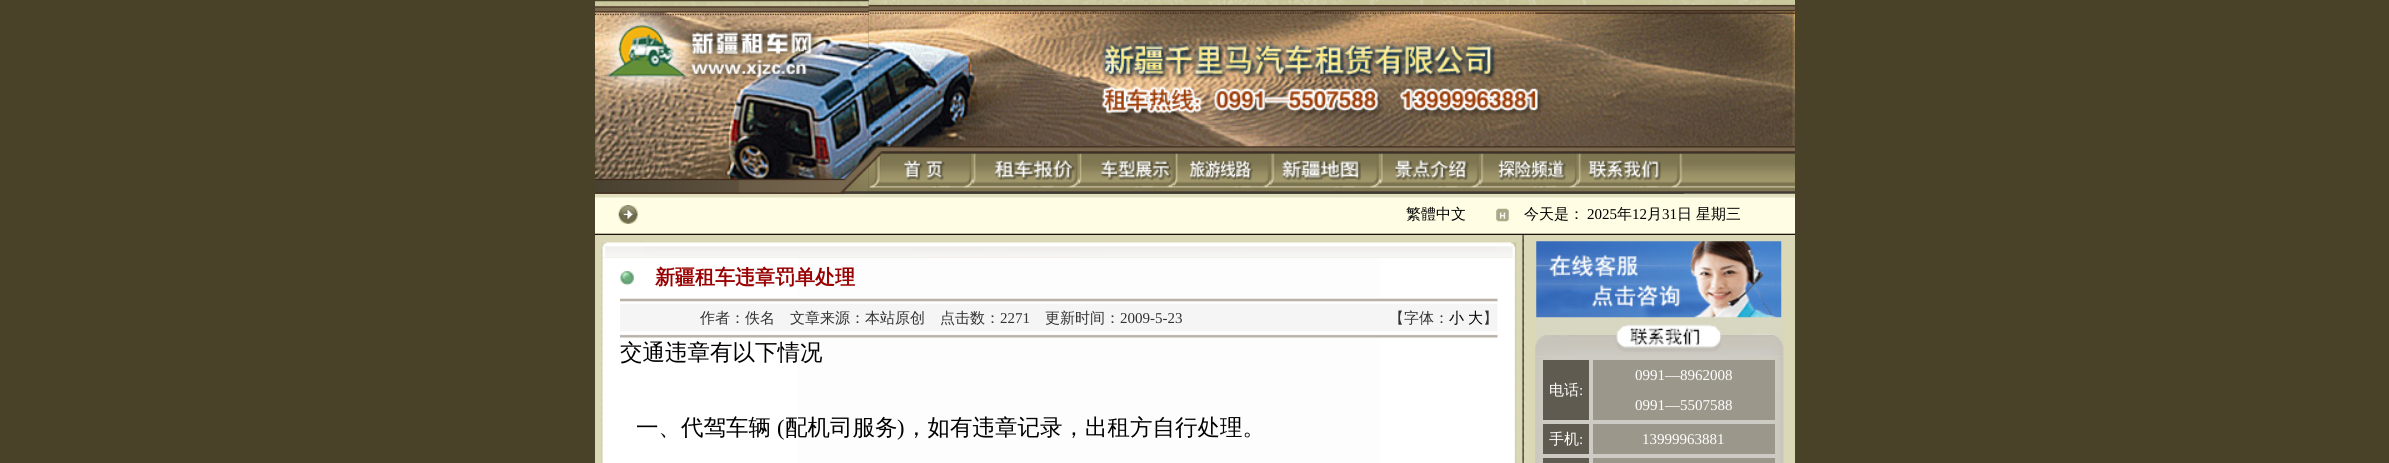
#include <cairo.h>
#include <math.h>
#include <stddef.h>


static void picture(cairo_t *cr, const char *path, double x, double y, double w, double h) {
    cairo_surface_t *image = cairo_image_surface_create_from_png(path);
    cairo_save(cr);
    cairo_set_source_surface(cr, image, x, y);
    cairo_rectangle(cr, x, y, w, h);
    cairo_fill(cr);
    cairo_restore(cr);
    cairo_surface_destroy(image);
}

int main(void) {
    cairo_surface_t *surface = cairo_image_surface_create(CAIRO_FORMAT_RGB24, 2389, 463);
    cairo_t *cr = cairo_create(surface);
    cairo_font_options_t *options = cairo_font_options_create();
    cairo_font_options_set_hint_metrics(options, CAIRO_HINT_METRICS_OFF);
    cairo_font_options_set_hint_style(options, CAIRO_HINT_STYLE_NONE);
    cairo_set_font_options(cr, options);
    cairo_set_miter_limit(cr, 4);
    cairo_set_source_rgb(cr, 0.286, 0.259, 0.161);
    cairo_paint(cr);
    picture(cr, "img3.png", 868, 145, 927, 49);
    picture(cr, "img12.png", 595, 193, 1200, 42);
    picture(cr, "img4.png", 868, 145, 105, 49);
    picture(cr, "img1.png", 595, 1, 274, 193);
    picture(cr, "img2.png", 868, 0, 927, 145);
    picture(cr, "img5.png", 972, 145, 107, 49);
    picture(cr, "img6.png", 1078, 145, 96, 49);
    picture(cr, "img7.png", 1173, 145, 97, 49);
    picture(cr, "img8.png", 1270, 145, 110, 49);
    picture(cr, "img9.png", 1380, 145, 100, 49);
    picture(cr, "img10.png", 1480, 145, 98, 49);
    picture(cr, "img11.png", 1577, 145, 107, 49);
    picture(cr, "img13.png", 618, 205, 20, 19);
    cairo_select_font_face(cr, "WenQuanYi Zen Hei Medium", CAIRO_FONT_SLANT_NORMAL, CAIRO_FONT_WEIGHT_NORMAL);
    cairo_set_font_size(cr, 15);
    cairo_set_source_rgb(cr, 0, 0, 0);
    cairo_move_to(cr, 1406, 219);
    cairo_show_text(cr, "繁體中文");
    picture(cr, "img14.png", 1496, 208, 13, 14);
    cairo_move_to(cr, 1524, 219);
    cairo_show_text(cr, "今天是：");
    cairo_select_font_face(cr, "Liberation Serif", CAIRO_FONT_SLANT_NORMAL, CAIRO_FONT_WEIGHT_NORMAL);
    cairo_move_to(cr, 1587, 219);
    cairo_show_text(cr, "2025");
    cairo_select_font_face(cr, "WenQuanYi Zen Hei Medium", CAIRO_FONT_SLANT_NORMAL, CAIRO_FONT_WEIGHT_NORMAL);
    cairo_move_to(cr, 1617, 219);
    cairo_show_text(cr, "年");
    cairo_select_font_face(cr, "Liberation Serif", CAIRO_FONT_SLANT_NORMAL, CAIRO_FONT_WEIGHT_NORMAL);
    cairo_move_to(cr, 1632, 219);
    cairo_show_text(cr, "12");
    cairo_select_font_face(cr, "WenQuanYi Zen Hei Medium", CAIRO_FONT_SLANT_NORMAL, CAIRO_FONT_WEIGHT_NORMAL);
    cairo_move_to(cr, 1647, 219);
    cairo_show_text(cr, "月");
    cairo_select_font_face(cr, "Liberation Serif", CAIRO_FONT_SLANT_NORMAL, CAIRO_FONT_WEIGHT_NORMAL);
    cairo_move_to(cr, 1662, 219);
    cairo_show_text(cr, "31");
    cairo_select_font_face(cr, "WenQuanYi Zen Hei Medium", CAIRO_FONT_SLANT_NORMAL, CAIRO_FONT_WEIGHT_NORMAL);
    cairo_move_to(cr, 1677, 219);
    cairo_show_text(cr, "日");
    cairo_move_to(cr, 1696, 219);
    cairo_show_text(cr, "星期三");
    cairo_set_source_rgb(cr, 0.859, 0.847, 0.718);
    cairo_rectangle(cr, 595, 235, 1200, 228);
    cairo_fill(cr);
    picture(cr, "img16.png", 601, 257, 916, 206);
    picture(cr, "img15.png", 601, 242, 916, 16);
    picture(cr, "img17.png", 620, 271, 14, 14);
    cairo_select_font_face(cr, "WenQuanYi Zen Hei", CAIRO_FONT_SLANT_NORMAL, CAIRO_FONT_WEIGHT_BOLD);
    cairo_set_font_size(cr, 20);
    cairo_set_source_rgb(cr, 0.6, 0, 0);
    cairo_move_to(cr, 655, 284);
    cairo_show_text(cr, "新疆租车违章罚单处理");
    picture(cr, "img18.png", 620, 298, 878, 40);
    cairo_select_font_face(cr, "WenQuanYi Zen Hei Medium", CAIRO_FONT_SLANT_NORMAL, CAIRO_FONT_WEIGHT_NORMAL);
    cairo_set_font_size(cr, 15);
    cairo_set_source_rgb(cr, 0.2, 0.2, 0.2);
    cairo_move_to(cr, 700, 323);
    cairo_show_text(cr, "作者：佚名");
    cairo_move_to(cr, 790, 323);
    cairo_show_text(cr, "文章来源：本站原创");
    cairo_move_to(cr, 940, 323);
    cairo_show_text(cr, "点击数：");
    cairo_select_font_face(cr, "Liberation Serif", CAIRO_FONT_SLANT_NORMAL, CAIRO_FONT_WEIGHT_NORMAL);
    cairo_move_to(cr, 1000, 323);
    cairo_show_text(cr, "2271");
    cairo_select_font_face(cr, "WenQuanYi Zen Hei Medium", CAIRO_FONT_SLANT_NORMAL, CAIRO_FONT_WEIGHT_NORMAL);
    cairo_move_to(cr, 1045, 323);
    cairo_show_text(cr, "更新时间：");
    cairo_select_font_face(cr, "Liberation Serif", CAIRO_FONT_SLANT_NORMAL, CAIRO_FONT_WEIGHT_NORMAL);
    cairo_move_to(cr, 1120, 323);
    cairo_show_text(cr, "2009-5-23");
    cairo_select_font_face(cr, "WenQuanYi Zen Hei Medium", CAIRO_FONT_SLANT_NORMAL, CAIRO_FONT_WEIGHT_NORMAL);
    cairo_move_to(cr, 1389, 323);
    cairo_show_text(cr, "【字体：");
    cairo_set_source_rgb(cr, 0, 0, 0);
    cairo_move_to(cr, 1449, 323);
    cairo_show_text(cr, "小");
    cairo_move_to(cr, 1468, 323);
    cairo_show_text(cr, "大");
    cairo_set_source_rgb(cr, 0.2, 0.2, 0.2);
    cairo_move_to(cr, 1483, 323);
    cairo_show_text(cr, "】");
    cairo_set_font_size(cr, 22.5);
    cairo_set_source_rgb(cr, 0, 0, 0);
    cairo_move_to(cr, 620, 360);
    cairo_show_text(cr, "交通违章有以下情况");
    cairo_move_to(cr, 636, 435);
    cairo_show_text(cr, "一、代驾车辆");
    cairo_select_font_face(cr, "Liberation Serif", CAIRO_FONT_SLANT_NORMAL, CAIRO_FONT_WEIGHT_NORMAL);
    cairo_move_to(cr, 777, 435);
    cairo_show_text(cr, "(");
    cairo_select_font_face(cr, "WenQuanYi Zen Hei Medium", CAIRO_FONT_SLANT_NORMAL, CAIRO_FONT_WEIGHT_NORMAL);
    cairo_move_to(cr, 785, 435);
    cairo_show_text(cr, "配机司服务");
    cairo_select_font_face(cr, "Liberation Serif", CAIRO_FONT_SLANT_NORMAL, CAIRO_FONT_WEIGHT_NORMAL);
    cairo_move_to(cr, 897, 435);
    cairo_show_text(cr, ")");
    cairo_select_font_face(cr, "WenQuanYi Zen Hei Medium", CAIRO_FONT_SLANT_NORMAL, CAIRO_FONT_WEIGHT_NORMAL);
    cairo_move_to(cr, 905, 435);
    cairo_show_text(cr, "，如有违章记录，出租方自行处理。");
    picture(cr, "img19.png", 1522, 235, 4, 228);
    picture(cr, "img20.png", 1536, 241, 246, 77);
    picture(cr, "img21.png", 1535, 317, 249, 39);
    picture(cr, "img22.png", 1535, 356, 249, 107);
    cairo_set_source_rgb(cr, 0.376, 0.357, 0.318);
    cairo_rectangle(cr, 1543, 360, 46, 60);
    cairo_fill(cr);
    cairo_set_font_size(cr, 15);
    cairo_set_source_rgb(cr, 1, 1, 1);
    cairo_move_to(cr, 1549, 395);
    cairo_show_text(cr, "电话");
    cairo_select_font_face(cr, "Liberation Serif", CAIRO_FONT_SLANT_NORMAL, CAIRO_FONT_WEIGHT_NORMAL);
    cairo_move_to(cr, 1579, 395);
    cairo_show_text(cr, ":");
    cairo_set_source_rgb(cr, 0.612, 0.592, 0.545);
    cairo_rectangle(cr, 1593, 360, 182, 60);
    cairo_fill(cr);
    cairo_set_source_rgb(cr, 1, 1, 1);
    cairo_move_to(cr, 1635, 380);
    cairo_show_text(cr, "0991—8962008");
    cairo_move_to(cr, 1635, 410);
    cairo_show_text(cr, "0991—5507588");
    cairo_set_source_rgb(cr, 0.376, 0.357, 0.318);
    cairo_rectangle(cr, 1543, 424, 46, 30);
    cairo_fill(cr);
    cairo_select_font_face(cr, "WenQuanYi Zen Hei Medium", CAIRO_FONT_SLANT_NORMAL, CAIRO_FONT_WEIGHT_NORMAL);
    cairo_set_source_rgb(cr, 1, 1, 1);
    cairo_move_to(cr, 1549, 444);
    cairo_show_text(cr, "手机");
    cairo_select_font_face(cr, "Liberation Serif", CAIRO_FONT_SLANT_NORMAL, CAIRO_FONT_WEIGHT_NORMAL);
    cairo_move_to(cr, 1579, 444);
    cairo_show_text(cr, ":");
    cairo_set_source_rgb(cr, 0.612, 0.592, 0.545);
    cairo_rectangle(cr, 1593, 424, 182, 30);
    cairo_fill(cr);
    cairo_set_source_rgb(cr, 1, 1, 1);
    cairo_move_to(cr, 1642, 444);
    cairo_show_text(cr, "13999963881");
    cairo_set_source_rgb(cr, 0.376, 0.357, 0.318);
    cairo_rectangle(cr, 1543, 458, 46, 5);
    cairo_fill(cr);
    cairo_set_source_rgb(cr, 0.612, 0.592, 0.545);
    cairo_rectangle(cr, 1593, 458, 182, 5);
    cairo_fill(cr);
    cairo_surface_write_to_png(surface, "page.png");
    cairo_font_options_destroy(options);
    cairo_destroy(cr);
    cairo_surface_destroy(surface);
    return 0;
}
